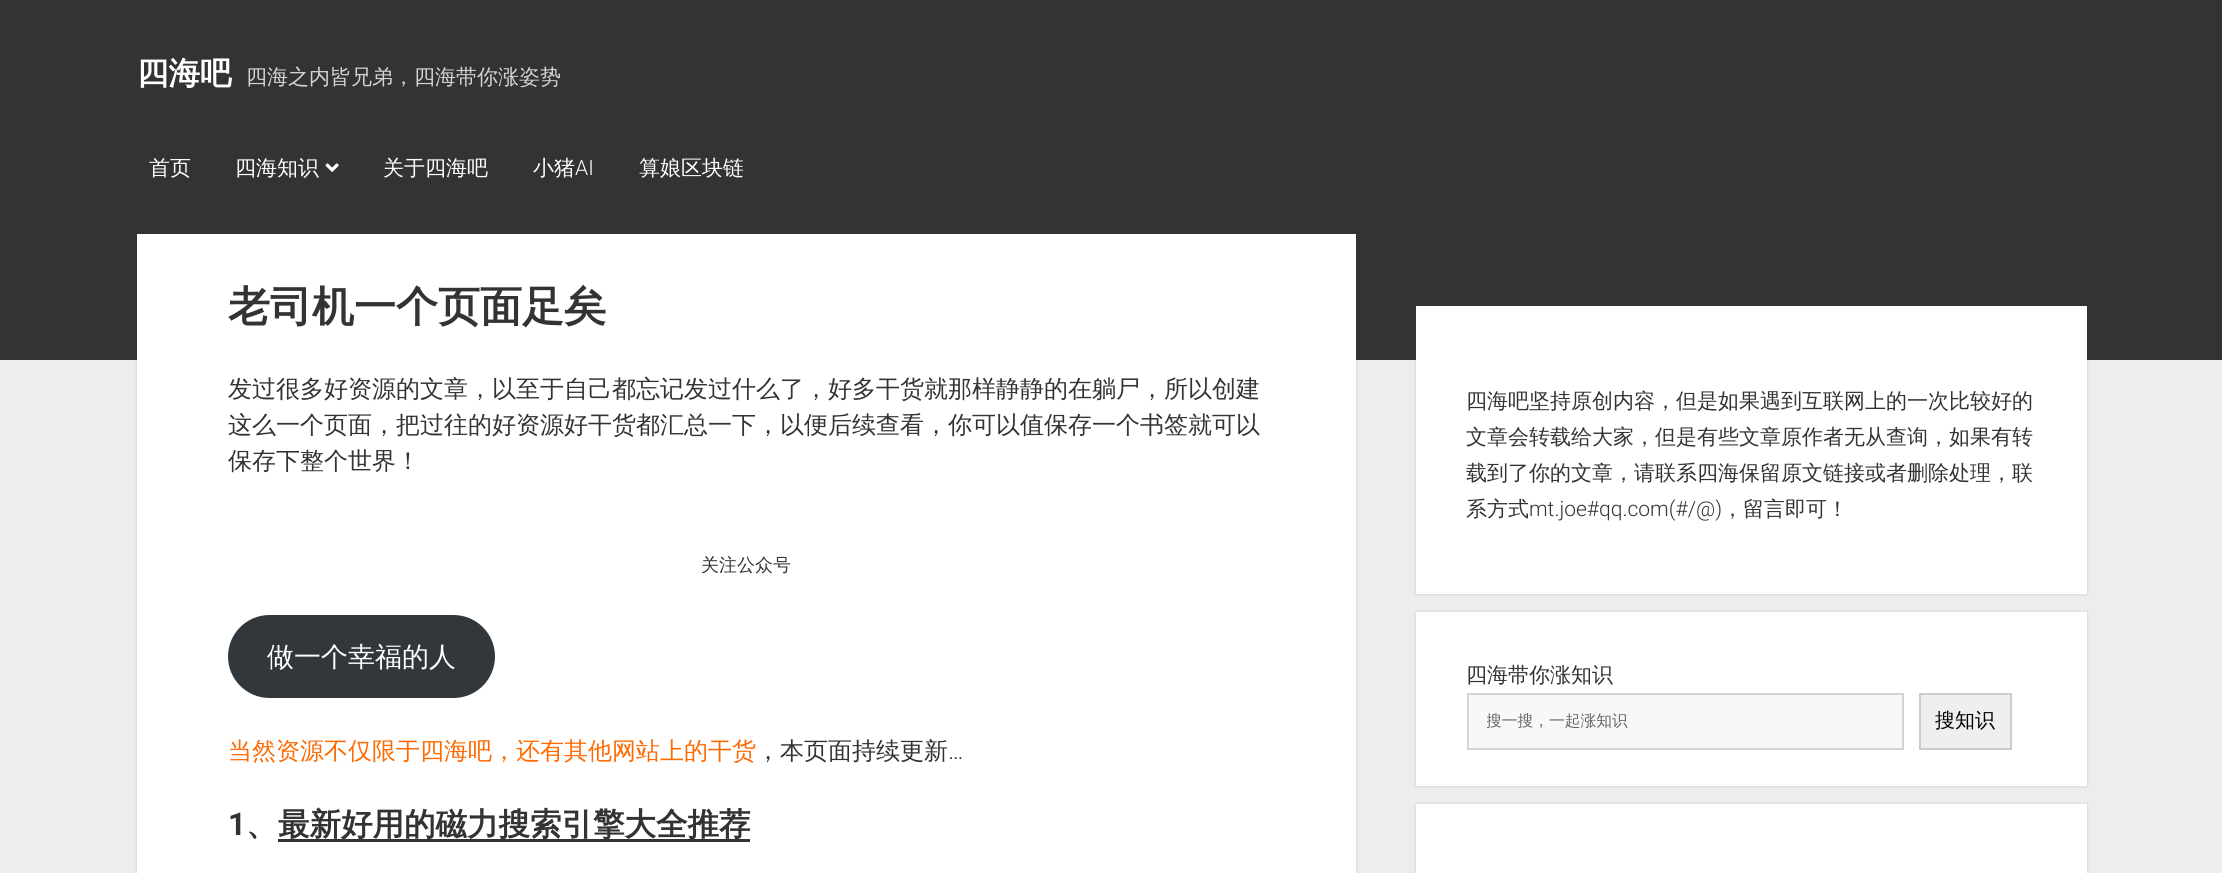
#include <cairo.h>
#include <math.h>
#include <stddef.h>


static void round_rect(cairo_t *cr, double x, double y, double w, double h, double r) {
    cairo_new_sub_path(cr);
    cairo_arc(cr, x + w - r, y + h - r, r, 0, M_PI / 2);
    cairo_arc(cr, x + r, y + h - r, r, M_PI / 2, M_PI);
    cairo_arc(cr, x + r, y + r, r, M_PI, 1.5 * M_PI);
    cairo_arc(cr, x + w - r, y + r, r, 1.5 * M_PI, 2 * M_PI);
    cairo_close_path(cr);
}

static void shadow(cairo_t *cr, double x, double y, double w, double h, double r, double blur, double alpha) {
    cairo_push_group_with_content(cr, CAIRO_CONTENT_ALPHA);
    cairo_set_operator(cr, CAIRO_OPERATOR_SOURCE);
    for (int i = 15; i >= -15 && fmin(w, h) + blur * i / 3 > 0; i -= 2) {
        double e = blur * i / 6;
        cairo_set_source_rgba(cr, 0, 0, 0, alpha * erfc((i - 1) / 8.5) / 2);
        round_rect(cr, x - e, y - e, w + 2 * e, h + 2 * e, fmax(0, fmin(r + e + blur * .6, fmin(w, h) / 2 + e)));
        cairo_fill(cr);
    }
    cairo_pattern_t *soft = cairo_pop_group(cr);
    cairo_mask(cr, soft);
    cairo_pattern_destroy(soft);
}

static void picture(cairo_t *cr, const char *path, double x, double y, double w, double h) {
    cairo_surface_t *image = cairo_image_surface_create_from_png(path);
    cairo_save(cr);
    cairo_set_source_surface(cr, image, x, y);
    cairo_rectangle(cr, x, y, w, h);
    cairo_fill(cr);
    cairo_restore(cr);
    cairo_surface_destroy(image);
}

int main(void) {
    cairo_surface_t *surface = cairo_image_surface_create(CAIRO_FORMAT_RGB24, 2222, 873);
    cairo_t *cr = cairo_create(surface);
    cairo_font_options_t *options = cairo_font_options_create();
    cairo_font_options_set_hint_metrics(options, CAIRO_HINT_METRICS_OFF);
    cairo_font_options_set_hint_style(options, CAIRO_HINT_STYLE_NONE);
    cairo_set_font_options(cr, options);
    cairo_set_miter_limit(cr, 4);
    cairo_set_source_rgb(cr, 0.929, 0.929, 0.929);
    cairo_paint(cr);
    cairo_set_source_rgb(cr, 0.2, 0.2, 0.2);
    cairo_rectangle(cr, 0, 0, 2222, 360);
    cairo_fill(cr);
    cairo_select_font_face(cr, "WenQuanYi Zen Hei", CAIRO_FONT_SLANT_NORMAL, CAIRO_FONT_WEIGHT_BOLD);
    cairo_set_font_size(cr, 31.5);
    cairo_set_source_rgb(cr, 1, 1, 1);
    cairo_move_to(cr, 137, 84);
    cairo_show_text(cr, "四海吧");
    cairo_select_font_face(cr, "WenQuanYi Zen Hei Medium", CAIRO_FONT_SLANT_NORMAL, CAIRO_FONT_WEIGHT_NORMAL);
    cairo_set_font_size(cr, 21);
    cairo_set_source_rgb(cr, 0.831, 0.831, 0.831);
    cairo_move_to(cr, 246, 84);
    cairo_show_text(cr, "四海之内皆兄弟，四海带你涨姿势");
    cairo_set_source_rgb(cr, 1, 1, 1);
    cairo_move_to(cr, 149, 175);
    cairo_show_text(cr, "首页");
    cairo_move_to(cr, 235, 175);
    cairo_show_text(cr, "四海知识");
    picture(cr, "img1.png", 325, 163, 14, 9);
    cairo_move_to(cr, 383, 175);
    cairo_show_text(cr, "关于四海吧");
    cairo_move_to(cr, 533, 175);
    cairo_show_text(cr, "小猪");
    cairo_select_font_face(cr, "Roboto Light", CAIRO_FONT_SLANT_NORMAL, CAIRO_FONT_WEIGHT_NORMAL);
    cairo_move_to(cr, 575, 175);
    cairo_show_text(cr, "AI");
    cairo_select_font_face(cr, "WenQuanYi Zen Hei Medium", CAIRO_FONT_SLANT_NORMAL, CAIRO_FONT_WEIGHT_NORMAL);
    cairo_move_to(cr, 639, 175);
    cairo_show_text(cr, "算娘区块链");
    cairo_set_source_rgb(cr, 0.227, 0.227, 0.227);
    shadow(cr, 137, 234, 1219, 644, 0, 1.5, 0.2);
    cairo_set_source_rgb(cr, 1, 1, 1);
    cairo_rectangle(cr, 137, 234, 1219, 639);
    cairo_fill(cr);
    cairo_select_font_face(cr, "WenQuanYi Zen Hei", CAIRO_FONT_SLANT_NORMAL, CAIRO_FONT_WEIGHT_BOLD);
    cairo_set_font_size(cr, 42);
    cairo_set_source_rgb(cr, 0.2, 0.2, 0.2);
    cairo_move_to(cr, 228, 321);
    cairo_show_text(cr, "老司机一个页面足矣");
    cairo_select_font_face(cr, "WenQuanYi Zen Hei Medium", CAIRO_FONT_SLANT_NORMAL, CAIRO_FONT_WEIGHT_NORMAL);
    cairo_set_font_size(cr, 24);
    cairo_move_to(cr, 228, 397);
    cairo_show_text(cr, "发过很多好资源的文章，以至于自己都忘记发过什么了，好多干货就那样静静的在躺尸，所以创建");
    cairo_move_to(cr, 228, 433);
    cairo_show_text(cr, "这么一个页面，把过往的好资源好干货都汇总一下，以便后续查看，你可以值保存一个书签就可以");
    cairo_move_to(cr, 228, 469);
    cairo_show_text(cr, "保存下整个世界！");
    cairo_set_font_size(cr, 18);
    cairo_move_to(cr, 701, 571);
    cairo_show_text(cr, "关注公众号");
    cairo_set_source_rgb(cr, 0.196, 0.216, 0.235);
    round_rect(cr, 228, 615, 267, 83, 41.5);
    cairo_fill(cr);
    cairo_set_font_size(cr, 27);
    cairo_set_source_rgb(cr, 1, 1, 1);
    cairo_move_to(cr, 267, 666);
    cairo_show_text(cr, "做一个幸福的人");
    cairo_set_font_size(cr, 24);
    cairo_set_source_rgb(cr, 1, 0.412, 0);
    cairo_move_to(cr, 228, 759);
    cairo_show_text(cr, "当然资源不仅限于四海吧，还有其他网站上的干货");
    cairo_set_source_rgb(cr, 0.2, 0.2, 0.2);
    cairo_move_to(cr, 756, 759);
    cairo_show_text(cr, "，本页面持续更新");
    cairo_select_font_face(cr, "Roboto Light", CAIRO_FONT_SLANT_NORMAL, CAIRO_FONT_WEIGHT_NORMAL);
    cairo_move_to(cr, 948, 759);
    cairo_show_text(cr, "…");
    cairo_select_font_face(cr, "Roboto", CAIRO_FONT_SLANT_NORMAL, CAIRO_FONT_WEIGHT_BOLD);
    cairo_set_font_size(cr, 31.5);
    cairo_move_to(cr, 228, 835);
    cairo_show_text(cr, "1");
    cairo_select_font_face(cr, "WenQuanYi Zen Hei", CAIRO_FONT_SLANT_NORMAL, CAIRO_FONT_WEIGHT_BOLD);
    cairo_move_to(cr, 246, 835);
    cairo_show_text(cr, "、");
    cairo_rectangle(cr, 278, 839, 472, 3);
    cairo_fill(cr);
    cairo_move_to(cr, 278, 835);
    cairo_show_text(cr, "最新好用的磁力搜索引擎大全推荐");
    cairo_set_source_rgb(cr, 0.227, 0.227, 0.227);
    shadow(cr, 1416, 306, 671, 288, 0, 1.5, 0.2);
    cairo_set_source_rgb(cr, 1, 1, 1);
    cairo_rectangle(cr, 1416, 306, 671, 288);
    cairo_fill(cr);
    cairo_select_font_face(cr, "WenQuanYi Zen Hei Medium", CAIRO_FONT_SLANT_NORMAL, CAIRO_FONT_WEIGHT_NORMAL);
    cairo_set_font_size(cr, 21);
    cairo_set_source_rgb(cr, 0.2, 0.2, 0.2);
    cairo_move_to(cr, 1466, 408);
    cairo_show_text(cr, "四海吧坚持原创内容，但是如果遇到互联网上的一次比较好的");
    cairo_move_to(cr, 1466, 444);
    cairo_show_text(cr, "文章会转载给大家，但是有些文章原作者无从查询，如果有转");
    cairo_move_to(cr, 1466, 480);
    cairo_show_text(cr, "载到了你的文章，请联系四海保留原文链接或者删除处理，联");
    cairo_move_to(cr, 1466, 516);
    cairo_show_text(cr, "系方式");
    cairo_select_font_face(cr, "Roboto Light", CAIRO_FONT_SLANT_NORMAL, CAIRO_FONT_WEIGHT_NORMAL);
    cairo_move_to(cr, 1529, 516);
    cairo_show_text(cr, "mt.joe#qq.com(#/@)");
    cairo_select_font_face(cr, "WenQuanYi Zen Hei Medium", CAIRO_FONT_SLANT_NORMAL, CAIRO_FONT_WEIGHT_NORMAL);
    cairo_move_to(cr, 1722, 516);
    cairo_show_text(cr, "，留言即可！");
    cairo_set_source_rgb(cr, 0.227, 0.227, 0.227);
    shadow(cr, 1416, 612, 671, 174, 0, 1.5, 0.2);
    cairo_set_source_rgb(cr, 1, 1, 1);
    cairo_rectangle(cr, 1416, 612, 671, 174);
    cairo_fill(cr);
    cairo_set_source_rgb(cr, 0.2, 0.2, 0.2);
    cairo_move_to(cr, 1466, 682);
    cairo_show_text(cr, "四海带你涨知识");
    cairo_set_source_rgb(cr, 0.969, 0.969, 0.969);
    cairo_rectangle(cr, 1468, 694, 435, 55);
    cairo_fill_preserve(cr);
    cairo_set_source_rgb(cr, 0.831, 0.831, 0.831);
    cairo_stroke(cr);
    cairo_save(cr);
    cairo_rectangle(cr, 1487, 711, 391, 21);
    cairo_clip(cr);
    cairo_set_font_size(cr, 15.75);
    cairo_set_source_rgb(cr, 0.4, 0.4, 0.4);
    cairo_move_to(cr, 1486, 726);
    cairo_show_text(cr, "搜一搜，一起涨知识");
    cairo_restore(cr);
    cairo_set_source_rgb(cr, 0.937, 0.937, 0.937);
    cairo_rectangle(cr, 1920, 694, 91, 55);
    cairo_fill_preserve(cr);
    cairo_set_source_rgb(cr, 0.8, 0.8, 0.8);
    cairo_stroke(cr);
    cairo_set_font_size(cr, 20);
    cairo_set_source_rgb(cr, 0, 0, 0);
    cairo_move_to(cr, 1935, 727);
    cairo_show_text(cr, "搜知识");
    cairo_set_source_rgb(cr, 0.227, 0.227, 0.227);
    shadow(cr, 1416, 804, 671, 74, 0, 1.5, 0.2);
    cairo_set_source_rgb(cr, 1, 1, 1);
    cairo_rectangle(cr, 1416, 804, 671, 69);
    cairo_fill(cr);
    cairo_surface_write_to_png(surface, "page.png");
    cairo_font_options_destroy(options);
    cairo_destroy(cr);
    cairo_surface_destroy(surface);
    return 0;
}
